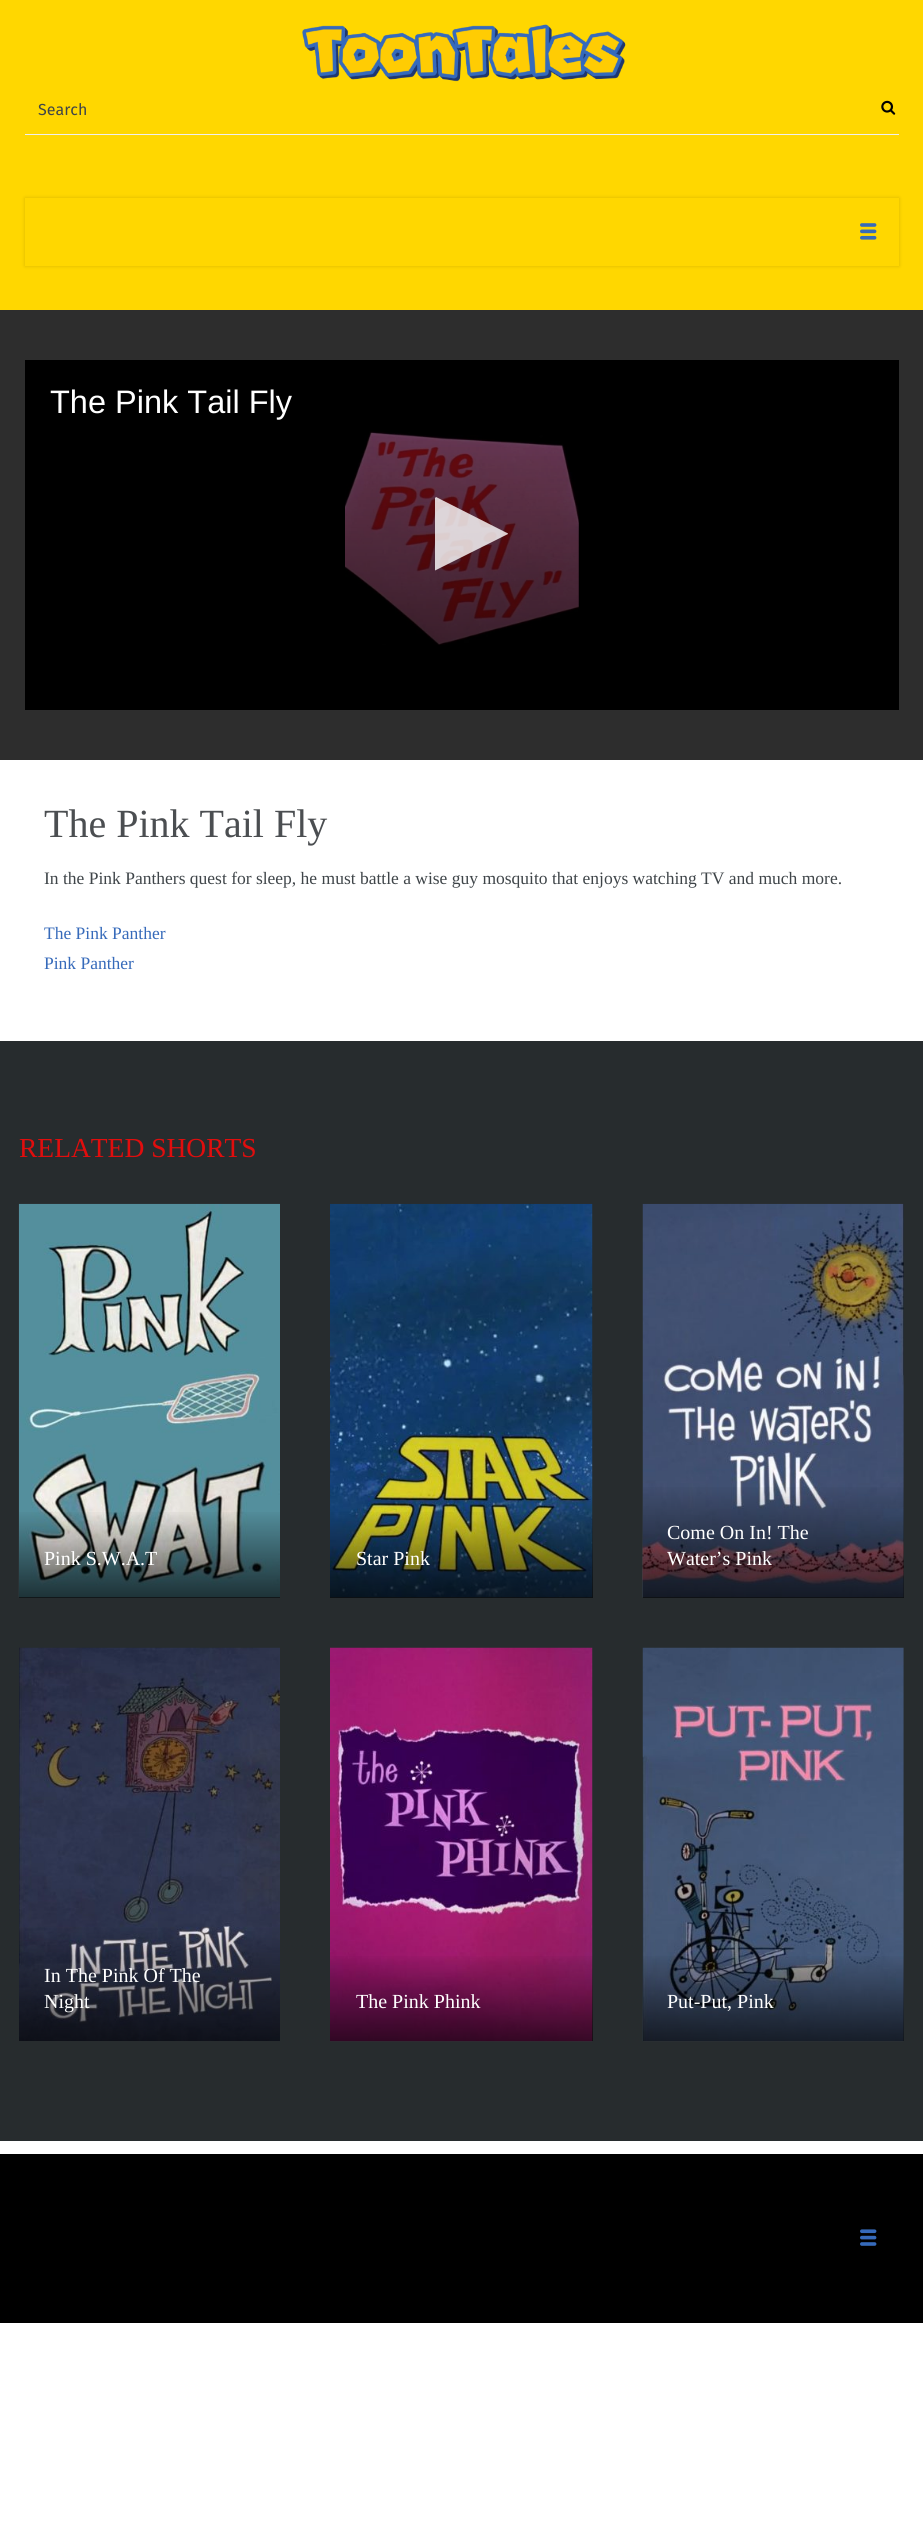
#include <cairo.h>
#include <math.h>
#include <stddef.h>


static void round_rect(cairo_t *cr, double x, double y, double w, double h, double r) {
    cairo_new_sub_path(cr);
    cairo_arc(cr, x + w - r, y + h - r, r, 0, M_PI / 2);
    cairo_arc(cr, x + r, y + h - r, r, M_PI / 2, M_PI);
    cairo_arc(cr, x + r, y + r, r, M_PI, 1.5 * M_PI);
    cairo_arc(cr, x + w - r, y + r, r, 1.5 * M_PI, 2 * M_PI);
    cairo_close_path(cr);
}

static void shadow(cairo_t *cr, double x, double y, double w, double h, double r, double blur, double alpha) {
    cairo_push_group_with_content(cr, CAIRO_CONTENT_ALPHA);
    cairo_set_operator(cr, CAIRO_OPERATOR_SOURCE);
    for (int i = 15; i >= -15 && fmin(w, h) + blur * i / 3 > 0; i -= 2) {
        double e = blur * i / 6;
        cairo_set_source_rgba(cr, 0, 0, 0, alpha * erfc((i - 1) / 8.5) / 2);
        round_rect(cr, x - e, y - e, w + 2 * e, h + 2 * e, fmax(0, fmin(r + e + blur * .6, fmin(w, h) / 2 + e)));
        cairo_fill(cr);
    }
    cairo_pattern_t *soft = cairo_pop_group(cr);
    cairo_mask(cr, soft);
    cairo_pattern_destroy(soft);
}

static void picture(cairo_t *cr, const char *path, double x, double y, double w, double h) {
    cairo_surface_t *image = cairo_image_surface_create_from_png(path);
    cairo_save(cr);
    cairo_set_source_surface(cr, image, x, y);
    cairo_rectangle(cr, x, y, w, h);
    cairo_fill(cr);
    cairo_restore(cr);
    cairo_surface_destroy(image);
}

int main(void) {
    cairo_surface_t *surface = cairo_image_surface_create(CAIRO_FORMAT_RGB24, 923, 2536);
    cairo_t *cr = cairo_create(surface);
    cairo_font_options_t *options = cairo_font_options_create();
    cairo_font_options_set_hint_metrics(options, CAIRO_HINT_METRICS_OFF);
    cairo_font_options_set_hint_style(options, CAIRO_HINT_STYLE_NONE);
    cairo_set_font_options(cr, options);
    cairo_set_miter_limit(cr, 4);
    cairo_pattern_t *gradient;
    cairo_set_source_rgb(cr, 1, 1, 1);
    cairo_paint(cr);
    cairo_set_source_rgb(cr, 1, 0.843, 0);
    cairo_rectangle(cr, 0, 0, 923, 310);
    cairo_fill(cr);
    picture(cr, "img1.png", 302, 24, 324, 58);
    cairo_set_source_rgb(cr, 0.937, 0.937, 0.937);
    cairo_rectangle(cr, 25, 134, 874, 1);
    cairo_fill(cr);
    cairo_select_font_face(cr, "Fira Sans", CAIRO_FONT_SLANT_NORMAL, CAIRO_FONT_WEIGHT_NORMAL);
    cairo_set_font_size(cr, 16);
    cairo_set_source_rgb(cr, 0.247, 0.271, 0.286);
    cairo_move_to(cr, 38, 115);
    cairo_show_text(cr, "Search");
    picture(cr, "img2.png", 881, 100, 15, 15);
    cairo_set_source_rgb(cr, 0, 0, 0);
    shadow(cr, 25, 198, 874, 68, 0, 2, 0.15);
    cairo_set_source_rgb(cr, 1, 0.843, 0);
    cairo_rectangle(cr, 25, 198, 874, 68);
    cairo_fill(cr);
    picture(cr, "img3.png", 860, 223, 17, 17);
    cairo_set_source_rgb(cr, 0.176, 0.176, 0.176);
    cairo_rectangle(cr, 0, 310, 923, 450);
    cairo_fill(cr);
    cairo_set_source_rgb(cr, 0, 0, 0);
    cairo_rectangle(cr, 25, 360, 874, 350);
    cairo_fill(cr);
    cairo_select_font_face(cr, "Liberation Sans", CAIRO_FONT_SLANT_NORMAL, CAIRO_FONT_WEIGHT_NORMAL);
    cairo_set_font_size(cr, 32.5);
    cairo_set_source_rgb(cr, 1, 1, 1);
    cairo_move_to(cr, 50, 413);
    cairo_show_text(cr, "The Pink Tail Fly");
    picture(cr, "img4.png", 345, 431, 234, 214);
    gradient = cairo_pattern_create_linear(462, 410, 462, 710);
    cairo_pattern_add_color_stop_rgba(gradient, 0, 0, 0, 0, 0);
    cairo_pattern_add_color_stop_rgba(gradient, 0.77, 0, 0, 0, 0.4);
    cairo_pattern_add_color_stop_rgba(gradient, 1, 0, 0, 0, 0.4);
    cairo_set_source(cr, gradient);
    cairo_pattern_destroy(gradient);
    cairo_rectangle(cr, 345, 433, 234, 212);
    cairo_fill(cr);
    cairo_set_source_rgba(cr, 1, 1, 1, 0.8);
    cairo_new_path(cr);
    cairo_move_to(cr, 436, 570);
    cairo_curve_to(cr, 436, 571, 435, 570, 435, 570);
    cairo_line_to(cr, 435, 498);
    cairo_line_to(cr, 436, 497);
    cairo_line_to(cr, 507, 533);
    cairo_curve_to(cr, 508, 533, 508, 534, 508, 534);
    cairo_close_path(cr);
    cairo_fill(cr);
    cairo_select_font_face(cr, "Liberation Serif", CAIRO_FONT_SLANT_NORMAL, CAIRO_FONT_WEIGHT_NORMAL);
    cairo_set_font_size(cr, 40);
    cairo_set_source_rgb(cr, 0.294, 0.306, 0.318);
    cairo_move_to(cr, 44, 837);
    cairo_show_text(cr, "The Pink Tail Fly");
    cairo_set_font_size(cr, 17.5);
    cairo_set_source_rgb(cr, 0.247, 0.271, 0.286);
    cairo_move_to(cr, 44, 884);
    cairo_show_text(cr, "In the Pink Panthers quest for sleep, he must battle a wise guy mosquito that enjoys watching TV and much more.");
    cairo_set_source_rgb(cr, 0.212, 0.416, 0.729);
    cairo_move_to(cr, 44, 939);
    cairo_show_text(cr, "The Pink Panther");
    cairo_move_to(cr, 44, 969);
    cairo_show_text(cr, "Pink Panther");
    cairo_set_source_rgb(cr, 0.153, 0.173, 0.18);
    cairo_rectangle(cr, 0, 1041, 923, 1100);
    cairo_fill(cr);
    cairo_set_font_size(cr, 27.5);
    cairo_set_source_rgb(cr, 0.882, 0.051, 0.051);
    cairo_move_to(cr, 19, 1157);
    cairo_show_text(cr, "RELATED SHORTS");
    picture(cr, "img5.png", 18, 1203, 262, 395);
    gradient = cairo_pattern_create_linear(149, 1509, 149, 1598);
    cairo_pattern_add_color_stop_rgba(gradient, 0, 0, 0, 0, 0);
    cairo_pattern_add_color_stop_rgba(gradient, 1, 0, 0, 0, 0.65);
    cairo_set_source(cr, gradient);
    cairo_pattern_destroy(gradient);
    cairo_rectangle(cr, 19, 1512, 261, 86);
    cairo_fill(cr);
    cairo_set_font_size(cr, 20);
    cairo_set_source_rgb(cr, 1, 1, 1);
    cairo_move_to(cr, 44, 1565);
    cairo_show_text(cr, "Pink S.W.A.T");
    picture(cr, "img6.png", 330, 1203, 263, 395);
    gradient = cairo_pattern_create_linear(461, 1509, 461, 1598);
    cairo_pattern_add_color_stop_rgba(gradient, 0, 0, 0, 0, 0);
    cairo_pattern_add_color_stop_rgba(gradient, 1, 0, 0, 0, 0.65);
    cairo_set_source(cr, gradient);
    cairo_pattern_destroy(gradient);
    cairo_rectangle(cr, 330, 1512, 263, 86);
    cairo_fill(cr);
    cairo_set_source_rgb(cr, 1, 1, 1);
    cairo_move_to(cr, 356, 1565);
    cairo_show_text(cr, "Star Pink");
    picture(cr, "img7.png", 642, 1203, 262, 395);
    gradient = cairo_pattern_create_linear(773, 1483, 773, 1598);
    cairo_pattern_add_color_stop_rgba(gradient, 0, 0, 0, 0, 0);
    cairo_pattern_add_color_stop_rgba(gradient, 1, 0, 0, 0, 0.65);
    cairo_set_source(cr, gradient);
    cairo_pattern_destroy(gradient);
    cairo_rectangle(cr, 643, 1487, 261, 111);
    cairo_fill(cr);
    cairo_set_source_rgb(cr, 1, 1, 1);
    cairo_move_to(cr, 667, 1539);
    cairo_show_text(cr, "Come On In! The");
    cairo_move_to(cr, 667, 1565);
    cairo_show_text(cr, "Water’s Pink");
    picture(cr, "img8.png", 19, 1647, 261, 394);
    cairo_move_to(cr, 44, 1982);
    cairo_show_text(cr, "In The Pink Of The");
    cairo_move_to(cr, 44, 2008);
    cairo_show_text(cr, "Night");
    picture(cr, "img9.png", 330, 1647, 263, 395);
    gradient = cairo_pattern_create_linear(461, 1953, 461, 2041);
    cairo_pattern_add_color_stop_rgba(gradient, 0, 0, 0, 0, 0);
    cairo_pattern_add_color_stop_rgba(gradient, 1, 0, 0, 0, 0.65);
    cairo_set_source(cr, gradient);
    cairo_pattern_destroy(gradient);
    cairo_rectangle(cr, 330, 1956, 263, 85);
    cairo_fill(cr);
    cairo_set_source_rgb(cr, 1, 1, 1);
    cairo_move_to(cr, 356, 2008);
    cairo_show_text(cr, "The Pink Phink");
    picture(cr, "img10.png", 642, 1647, 262, 395);
    gradient = cairo_pattern_create_linear(773, 1953, 773, 2041);
    cairo_pattern_add_color_stop_rgba(gradient, 0, 0, 0, 0, 0);
    cairo_pattern_add_color_stop_rgba(gradient, 1, 0, 0, 0, 0.65);
    cairo_set_source(cr, gradient);
    cairo_pattern_destroy(gradient);
    cairo_rectangle(cr, 643, 1956, 261, 85);
    cairo_fill(cr);
    cairo_set_source_rgb(cr, 1, 1, 1);
    cairo_move_to(cr, 667, 2008);
    cairo_show_text(cr, "Put-Put, Pink");
    cairo_set_source_rgb(cr, 0, 0, 0);
    cairo_rectangle(cr, 0, 2154, 923, 169);
    cairo_fill(cr);
    picture(cr, "img11.png", 860, 2229, 17, 17);
    cairo_surface_write_to_png(surface, "page.png");
    cairo_font_options_destroy(options);
    cairo_destroy(cr);
    cairo_surface_destroy(surface);
    return 0;
}
